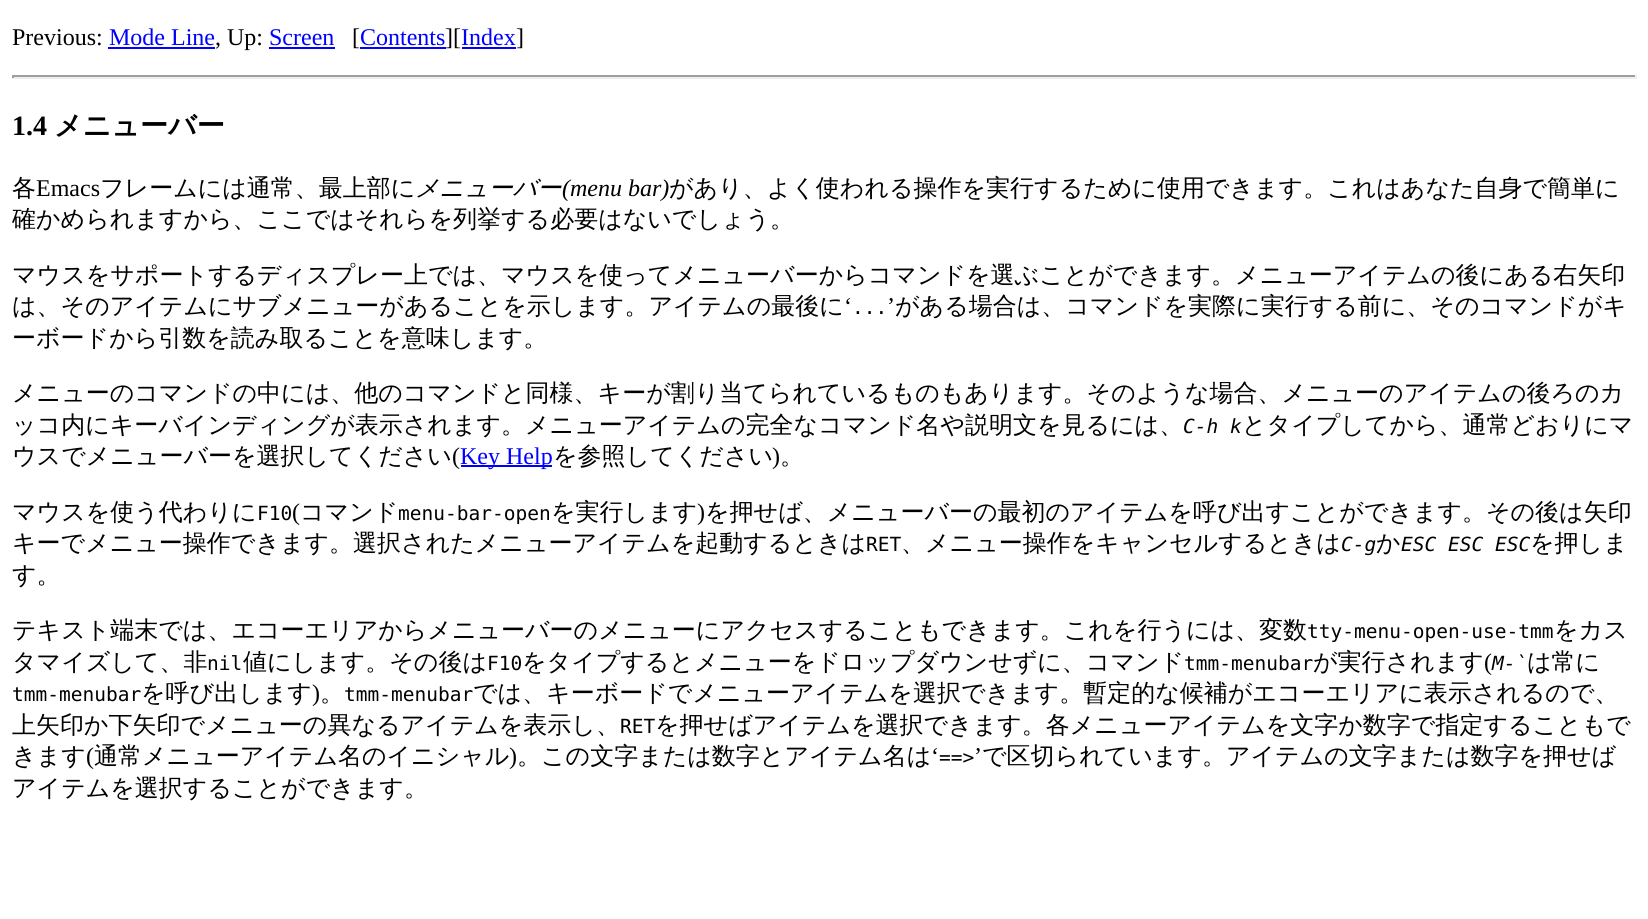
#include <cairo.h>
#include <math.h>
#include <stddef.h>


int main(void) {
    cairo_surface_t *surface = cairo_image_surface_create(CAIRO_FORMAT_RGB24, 1648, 919);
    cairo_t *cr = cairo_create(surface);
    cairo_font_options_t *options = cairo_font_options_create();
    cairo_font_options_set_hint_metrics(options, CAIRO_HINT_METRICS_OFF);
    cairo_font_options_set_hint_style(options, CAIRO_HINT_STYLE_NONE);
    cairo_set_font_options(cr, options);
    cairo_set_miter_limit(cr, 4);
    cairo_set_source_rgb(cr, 1, 1, 1);
    cairo_paint(cr);
    cairo_select_font_face(cr, "Liberation Serif", CAIRO_FONT_SLANT_NORMAL, CAIRO_FONT_WEIGHT_NORMAL);
    cairo_set_font_size(cr, 24);
    cairo_set_source_rgb(cr, 0, 0, 0);
    cairo_move_to(cr, 12, 45);
    cairo_show_text(cr, "Previous:");
    cairo_set_source_rgb(cr, 0, 0, 1);
    cairo_move_to(cr, 109, 45);
    cairo_show_text(cr, "Mode Line");
    cairo_rectangle(cr, 108, 47, 107, 2);
    cairo_fill(cr);
    cairo_set_source_rgb(cr, 0, 0, 0);
    cairo_move_to(cr, 215, 45);
    cairo_show_text(cr, ", Up:");
    cairo_set_source_rgb(cr, 0, 0, 1);
    cairo_move_to(cr, 269, 45);
    cairo_show_text(cr, "Screen");
    cairo_rectangle(cr, 269, 47, 66, 2);
    cairo_fill(cr);
    cairo_set_source_rgb(cr, 0, 0, 0);
    cairo_move_to(cr, 352, 45);
    cairo_show_text(cr, "[");
    cairo_set_source_rgb(cr, 0, 0, 1);
    cairo_move_to(cr, 360, 45);
    cairo_show_text(cr, "Contents");
    cairo_rectangle(cr, 360, 47, 86, 2);
    cairo_fill(cr);
    cairo_set_source_rgb(cr, 0, 0, 0);
    cairo_move_to(cr, 445, 45);
    cairo_show_text(cr, "][");
    cairo_set_source_rgb(cr, 0, 0, 1);
    cairo_move_to(cr, 461, 45);
    cairo_show_text(cr, "Index");
    cairo_rectangle(cr, 462, 47, 54, 2);
    cairo_fill(cr);
    cairo_set_source_rgb(cr, 0, 0, 0);
    cairo_move_to(cr, 516, 45);
    cairo_show_text(cr, "]");
    cairo_set_source_rgb(cr, 0.624, 0.624, 0.624);
    cairo_rectangle(cr, 12, 75, 1625, 2);
    cairo_fill(cr);
    cairo_set_source_rgb(cr, 0.933, 0.933, 0.933);
    cairo_rectangle(cr, 1635, 75, 2, 3);
    cairo_fill(cr);
    cairo_rectangle(cr, 12, 77, 1625, 2);
    cairo_fill(cr);
    cairo_set_source_rgb(cr, 0.624, 0.624, 0.624);
    cairo_rectangle(cr, 12, 75, 2, 3);
    cairo_fill(cr);
    cairo_select_font_face(cr, "Liberation Serif", CAIRO_FONT_SLANT_NORMAL, CAIRO_FONT_WEIGHT_BOLD);
    cairo_set_font_size(cr, 28);
    cairo_set_source_rgb(cr, 0, 0, 0);
    cairo_move_to(cr, 12, 135);
    cairo_show_text(cr, "1.4");
    cairo_select_font_face(cr, "WenQuanYi Zen Hei", CAIRO_FONT_SLANT_NORMAL, CAIRO_FONT_WEIGHT_BOLD);
    cairo_move_to(cr, 54, 135);
    cairo_show_text(cr, "メニューバー");
    cairo_select_font_face(cr, "WenQuanYi Zen Hei Medium", CAIRO_FONT_SLANT_NORMAL, CAIRO_FONT_WEIGHT_NORMAL);
    cairo_set_font_size(cr, 24);
    cairo_move_to(cr, 12, 196);
    cairo_show_text(cr, "各");
    cairo_select_font_face(cr, "Liberation Serif", CAIRO_FONT_SLANT_NORMAL, CAIRO_FONT_WEIGHT_NORMAL);
    cairo_move_to(cr, 36, 196);
    cairo_show_text(cr, "Emacs");
    cairo_select_font_face(cr, "WenQuanYi Zen Hei Medium", CAIRO_FONT_SLANT_NORMAL, CAIRO_FONT_WEIGHT_NORMAL);
    cairo_move_to(cr, 100, 196);
    cairo_show_text(cr, "フレームには通常、最上部に");
    cairo_select_font_face(cr, "WenQuanYi Zen Hei Medium", CAIRO_FONT_SLANT_ITALIC, CAIRO_FONT_WEIGHT_NORMAL);
    cairo_move_to(cr, 415, 196);
    cairo_show_text(cr, "メニューバー");
    cairo_select_font_face(cr, "Liberation Serif", CAIRO_FONT_SLANT_ITALIC, CAIRO_FONT_WEIGHT_NORMAL);
    cairo_move_to(cr, 562, 196);
    cairo_show_text(cr, "(menu bar)");
    cairo_select_font_face(cr, "WenQuanYi Zen Hei Medium", CAIRO_FONT_SLANT_NORMAL, CAIRO_FONT_WEIGHT_NORMAL);
    cairo_move_to(cr, 669, 196);
    cairo_show_text(cr, "があり、よく使われる操作を実行するために使用できます。これはあなた自身で簡単に");
    cairo_move_to(cr, 12, 227);
    cairo_show_text(cr, "確かめられますから、ここではそれらを列挙する必要はないでしょう。");
    cairo_move_to(cr, 12, 283);
    cairo_show_text(cr, "マウスをサポートするディスプレー上では、マウスを使ってメニューバーからコマンドを選ぶことができます。メニューアイテムの後にある右矢印");
    cairo_move_to(cr, 12, 314);
    cairo_show_text(cr, "は、そのアイテムにサブメニューがあることを示します。アイテムの最後に");
    cairo_select_font_face(cr, "Liberation Serif", CAIRO_FONT_SLANT_NORMAL, CAIRO_FONT_WEIGHT_NORMAL);
    cairo_move_to(cr, 844, 314);
    cairo_show_text(cr, "‘");
    cairo_move_to(cr, 887, 314);
    cairo_show_text(cr, "’");
    cairo_select_font_face(cr, "WenQuanYi Zen Hei Medium", CAIRO_FONT_SLANT_NORMAL, CAIRO_FONT_WEIGHT_NORMAL);
    cairo_move_to(cr, 895, 314);
    cairo_show_text(cr, "がある場合は、コマンドを実際に実行する前に、そのコマンドがキ");
    cairo_select_font_face(cr, "DejaVu Sans Mono", CAIRO_FONT_SLANT_NORMAL, CAIRO_FONT_WEIGHT_NORMAL);
    cairo_set_font_size(cr, 19.5);
    cairo_move_to(cr, 852, 314);
    cairo_show_text(cr, "...");
    cairo_select_font_face(cr, "WenQuanYi Zen Hei Medium", CAIRO_FONT_SLANT_NORMAL, CAIRO_FONT_WEIGHT_NORMAL);
    cairo_set_font_size(cr, 24);
    cairo_move_to(cr, 12, 346);
    cairo_show_text(cr, "ーボードから引数を読み取ることを意味します。");
    cairo_move_to(cr, 12, 401);
    cairo_show_text(cr, "メニューのコマンドの中には、他のコマンドと同様、キーが割り当てられているものもあります。そのような場合、メニューのアイテムの後ろのカ");
    cairo_move_to(cr, 12, 433);
    cairo_show_text(cr, "ッコ内にキーバインディングが表示されます。メニューアイテムの完全なコマンド名や説明文を見るには、");
    cairo_select_font_face(cr, "DejaVu Sans Mono", CAIRO_FONT_SLANT_ITALIC, CAIRO_FONT_WEIGHT_NORMAL);
    cairo_set_font_size(cr, 19.5);
    cairo_move_to(cr, 1183, 433);
    cairo_show_text(cr, "C-h k");
    cairo_select_font_face(cr, "WenQuanYi Zen Hei Medium", CAIRO_FONT_SLANT_NORMAL, CAIRO_FONT_WEIGHT_NORMAL);
    cairo_set_font_size(cr, 24);
    cairo_move_to(cr, 1242, 433);
    cairo_show_text(cr, "とタイプしてから、通常どおりにマ");
    cairo_move_to(cr, 12, 464);
    cairo_show_text(cr, "ウスでメニューバーを選択してください");
    cairo_select_font_face(cr, "Liberation Serif", CAIRO_FONT_SLANT_NORMAL, CAIRO_FONT_WEIGHT_NORMAL);
    cairo_move_to(cr, 452, 464);
    cairo_show_text(cr, "(");
    cairo_set_source_rgb(cr, 0, 0, 1);
    cairo_rectangle(cr, 461, 465, 91, 2);
    cairo_fill(cr);
    cairo_move_to(cr, 460, 464);
    cairo_show_text(cr, "Key Help");
    cairo_select_font_face(cr, "WenQuanYi Zen Hei Medium", CAIRO_FONT_SLANT_NORMAL, CAIRO_FONT_WEIGHT_NORMAL);
    cairo_set_source_rgb(cr, 0, 0, 0);
    cairo_move_to(cr, 553, 464);
    cairo_show_text(cr, "を参照してください");
    cairo_select_font_face(cr, "Liberation Serif", CAIRO_FONT_SLANT_NORMAL, CAIRO_FONT_WEIGHT_NORMAL);
    cairo_move_to(cr, 772, 464);
    cairo_show_text(cr, ")");
    cairo_select_font_face(cr, "WenQuanYi Zen Hei Medium", CAIRO_FONT_SLANT_NORMAL, CAIRO_FONT_WEIGHT_NORMAL);
    cairo_move_to(cr, 780, 464);
    cairo_show_text(cr, "。");
    cairo_move_to(cr, 12, 520);
    cairo_show_text(cr, "マウスを使う代わりに");
    cairo_select_font_face(cr, "DejaVu Sans Mono", CAIRO_FONT_SLANT_NORMAL, CAIRO_FONT_WEIGHT_NORMAL);
    cairo_set_font_size(cr, 19.5);
    cairo_move_to(cr, 257, 520);
    cairo_show_text(cr, "F10");
    cairo_select_font_face(cr, "Liberation Serif", CAIRO_FONT_SLANT_NORMAL, CAIRO_FONT_WEIGHT_NORMAL);
    cairo_set_font_size(cr, 24);
    cairo_move_to(cr, 292, 520);
    cairo_show_text(cr, "(");
    cairo_select_font_face(cr, "WenQuanYi Zen Hei Medium", CAIRO_FONT_SLANT_NORMAL, CAIRO_FONT_WEIGHT_NORMAL);
    cairo_move_to(cr, 300, 520);
    cairo_show_text(cr, "コマンド");
    cairo_select_font_face(cr, "DejaVu Sans Mono", CAIRO_FONT_SLANT_NORMAL, CAIRO_FONT_WEIGHT_NORMAL);
    cairo_set_font_size(cr, 19.5);
    cairo_move_to(cr, 398, 520);
    cairo_show_text(cr, "menu-bar-open");
    cairo_select_font_face(cr, "WenQuanYi Zen Hei Medium", CAIRO_FONT_SLANT_NORMAL, CAIRO_FONT_WEIGHT_NORMAL);
    cairo_set_font_size(cr, 24);
    cairo_move_to(cr, 551, 520);
    cairo_show_text(cr, "を実行します");
    cairo_select_font_face(cr, "Liberation Serif", CAIRO_FONT_SLANT_NORMAL, CAIRO_FONT_WEIGHT_NORMAL);
    cairo_move_to(cr, 697, 520);
    cairo_show_text(cr, ")");
    cairo_select_font_face(cr, "WenQuanYi Zen Hei Medium", CAIRO_FONT_SLANT_NORMAL, CAIRO_FONT_WEIGHT_NORMAL);
    cairo_move_to(cr, 705, 520);
    cairo_show_text(cr, "を押せば、メニューバーの最初のアイテムを呼び出すことができます。その後は矢印");
    cairo_move_to(cr, 12, 551);
    cairo_show_text(cr, "キーでメニュー操作できます。選択されたメニューアイテムを起動するときは");
    cairo_select_font_face(cr, "DejaVu Sans Mono", CAIRO_FONT_SLANT_NORMAL, CAIRO_FONT_WEIGHT_NORMAL);
    cairo_set_font_size(cr, 19.5);
    cairo_move_to(cr, 866, 551);
    cairo_show_text(cr, "RET");
    cairo_select_font_face(cr, "WenQuanYi Zen Hei Medium", CAIRO_FONT_SLANT_NORMAL, CAIRO_FONT_WEIGHT_NORMAL);
    cairo_set_font_size(cr, 24);
    cairo_move_to(cr, 901, 551);
    cairo_show_text(cr, "、メニュー操作をキャンセルするときは");
    cairo_select_font_face(cr, "DejaVu Sans Mono", CAIRO_FONT_SLANT_ITALIC, CAIRO_FONT_WEIGHT_NORMAL);
    cairo_set_font_size(cr, 19.5);
    cairo_move_to(cr, 1341, 551);
    cairo_show_text(cr, "C-g");
    cairo_select_font_face(cr, "WenQuanYi Zen Hei Medium", CAIRO_FONT_SLANT_NORMAL, CAIRO_FONT_WEIGHT_NORMAL);
    cairo_set_font_size(cr, 24);
    cairo_move_to(cr, 1376, 551);
    cairo_show_text(cr, "か");
    cairo_select_font_face(cr, "DejaVu Sans Mono", CAIRO_FONT_SLANT_ITALIC, CAIRO_FONT_WEIGHT_NORMAL);
    cairo_set_font_size(cr, 19.5);
    cairo_move_to(cr, 1401, 551);
    cairo_show_text(cr, "ESC ESC ESC");
    cairo_select_font_face(cr, "WenQuanYi Zen Hei Medium", CAIRO_FONT_SLANT_NORMAL, CAIRO_FONT_WEIGHT_NORMAL);
    cairo_set_font_size(cr, 24);
    cairo_move_to(cr, 1530, 551);
    cairo_show_text(cr, "を押しま");
    cairo_move_to(cr, 12, 583);
    cairo_show_text(cr, "す。");
    cairo_move_to(cr, 12, 638);
    cairo_show_text(cr, "テキスト端末では、エコーエリアからメニューバーのメニューにアクセスすることもできます。これを行うには、変数");
    cairo_select_font_face(cr, "DejaVu Sans Mono", CAIRO_FONT_SLANT_NORMAL, CAIRO_FONT_WEIGHT_NORMAL);
    cairo_set_font_size(cr, 19.5);
    cairo_move_to(cr, 1307, 638);
    cairo_show_text(cr, "tty-menu-open-use-tmm");
    cairo_select_font_face(cr, "WenQuanYi Zen Hei Medium", CAIRO_FONT_SLANT_NORMAL, CAIRO_FONT_WEIGHT_NORMAL);
    cairo_set_font_size(cr, 24);
    cairo_move_to(cr, 1554, 638);
    cairo_show_text(cr, "をカス");
    cairo_move_to(cr, 12, 670);
    cairo_show_text(cr, "タマイズして、非");
    cairo_select_font_face(cr, "DejaVu Sans Mono", CAIRO_FONT_SLANT_NORMAL, CAIRO_FONT_WEIGHT_NORMAL);
    cairo_set_font_size(cr, 19.5);
    cairo_move_to(cr, 207, 670);
    cairo_show_text(cr, "nil");
    cairo_select_font_face(cr, "WenQuanYi Zen Hei Medium", CAIRO_FONT_SLANT_NORMAL, CAIRO_FONT_WEIGHT_NORMAL);
    cairo_set_font_size(cr, 24);
    cairo_move_to(cr, 243, 670);
    cairo_show_text(cr, "値にします。その後は");
    cairo_select_font_face(cr, "DejaVu Sans Mono", CAIRO_FONT_SLANT_NORMAL, CAIRO_FONT_WEIGHT_NORMAL);
    cairo_set_font_size(cr, 19.5);
    cairo_move_to(cr, 487, 670);
    cairo_show_text(cr, "F10");
    cairo_select_font_face(cr, "WenQuanYi Zen Hei Medium", CAIRO_FONT_SLANT_NORMAL, CAIRO_FONT_WEIGHT_NORMAL);
    cairo_set_font_size(cr, 24);
    cairo_move_to(cr, 522, 670);
    cairo_show_text(cr, "をタイプするとメニューをドロップダウンせずに、コマンド");
    cairo_select_font_face(cr, "DejaVu Sans Mono", CAIRO_FONT_SLANT_NORMAL, CAIRO_FONT_WEIGHT_NORMAL);
    cairo_set_font_size(cr, 19.5);
    cairo_move_to(cr, 1184, 670);
    cairo_show_text(cr, "tmm-menubar");
    cairo_select_font_face(cr, "WenQuanYi Zen Hei Medium", CAIRO_FONT_SLANT_NORMAL, CAIRO_FONT_WEIGHT_NORMAL);
    cairo_set_font_size(cr, 24);
    cairo_move_to(cr, 1313, 670);
    cairo_show_text(cr, "が実行されます");
    cairo_select_font_face(cr, "Liberation Serif", CAIRO_FONT_SLANT_NORMAL, CAIRO_FONT_WEIGHT_NORMAL);
    cairo_move_to(cr, 1484, 670);
    cairo_show_text(cr, "(");
    cairo_select_font_face(cr, "DejaVu Sans Mono", CAIRO_FONT_SLANT_ITALIC, CAIRO_FONT_WEIGHT_NORMAL);
    cairo_set_font_size(cr, 19.5);
    cairo_move_to(cr, 1492, 670);
    cairo_show_text(cr, "M-`");
    cairo_select_font_face(cr, "WenQuanYi Zen Hei Medium", CAIRO_FONT_SLANT_NORMAL, CAIRO_FONT_WEIGHT_NORMAL);
    cairo_set_font_size(cr, 24);
    cairo_move_to(cr, 1527, 670);
    cairo_show_text(cr, "は常に");
    cairo_select_font_face(cr, "DejaVu Sans Mono", CAIRO_FONT_SLANT_NORMAL, CAIRO_FONT_WEIGHT_NORMAL);
    cairo_set_font_size(cr, 19.5);
    cairo_move_to(cr, 12, 701);
    cairo_show_text(cr, "tmm-menubar");
    cairo_select_font_face(cr, "WenQuanYi Zen Hei Medium", CAIRO_FONT_SLANT_NORMAL, CAIRO_FONT_WEIGHT_NORMAL);
    cairo_set_font_size(cr, 24);
    cairo_move_to(cr, 141, 701);
    cairo_show_text(cr, "を呼び出します");
    cairo_select_font_face(cr, "Liberation Serif", CAIRO_FONT_SLANT_NORMAL, CAIRO_FONT_WEIGHT_NORMAL);
    cairo_move_to(cr, 312, 701);
    cairo_show_text(cr, ")");
    cairo_select_font_face(cr, "WenQuanYi Zen Hei Medium", CAIRO_FONT_SLANT_NORMAL, CAIRO_FONT_WEIGHT_NORMAL);
    cairo_move_to(cr, 320, 701);
    cairo_show_text(cr, "。");
    cairo_select_font_face(cr, "DejaVu Sans Mono", CAIRO_FONT_SLANT_NORMAL, CAIRO_FONT_WEIGHT_NORMAL);
    cairo_set_font_size(cr, 19.5);
    cairo_move_to(cr, 344, 701);
    cairo_show_text(cr, "tmm-menubar");
    cairo_select_font_face(cr, "WenQuanYi Zen Hei Medium", CAIRO_FONT_SLANT_NORMAL, CAIRO_FONT_WEIGHT_NORMAL);
    cairo_set_font_size(cr, 24);
    cairo_move_to(cr, 473, 701);
    cairo_show_text(cr, "では、キーボードでメニューアイテムを選択できます。暫定的な候補がエコーエリアに表示されるので、");
    cairo_move_to(cr, 12, 733);
    cairo_show_text(cr, "上矢印か下矢印でメニューの異なるアイテムを表示し、");
    cairo_select_font_face(cr, "DejaVu Sans Mono", CAIRO_FONT_SLANT_NORMAL, CAIRO_FONT_WEIGHT_NORMAL);
    cairo_set_font_size(cr, 19.5);
    cairo_move_to(cr, 620, 733);
    cairo_show_text(cr, "RET");
    cairo_select_font_face(cr, "WenQuanYi Zen Hei Medium", CAIRO_FONT_SLANT_NORMAL, CAIRO_FONT_WEIGHT_NORMAL);
    cairo_set_font_size(cr, 24);
    cairo_move_to(cr, 655, 733);
    cairo_show_text(cr, "を押せばアイテムを選択できます。各メニューアイテムを文字か数字で指定することもで");
    cairo_move_to(cr, 12, 764);
    cairo_show_text(cr, "きます");
    cairo_select_font_face(cr, "Liberation Serif", CAIRO_FONT_SLANT_NORMAL, CAIRO_FONT_WEIGHT_NORMAL);
    cairo_move_to(cr, 86, 764);
    cairo_show_text(cr, "(");
    cairo_select_font_face(cr, "WenQuanYi Zen Hei Medium", CAIRO_FONT_SLANT_NORMAL, CAIRO_FONT_WEIGHT_NORMAL);
    cairo_move_to(cr, 94, 764);
    cairo_show_text(cr, "通常メニューアイテム名のイニシャル");
    cairo_select_font_face(cr, "Liberation Serif", CAIRO_FONT_SLANT_NORMAL, CAIRO_FONT_WEIGHT_NORMAL);
    cairo_move_to(cr, 509, 764);
    cairo_show_text(cr, ")");
    cairo_select_font_face(cr, "WenQuanYi Zen Hei Medium", CAIRO_FONT_SLANT_NORMAL, CAIRO_FONT_WEIGHT_NORMAL);
    cairo_move_to(cr, 517, 764);
    cairo_show_text(cr, "。この文字または数字とアイテム名は");
    cairo_select_font_face(cr, "Liberation Serif", CAIRO_FONT_SLANT_NORMAL, CAIRO_FONT_WEIGHT_NORMAL);
    cairo_move_to(cr, 931, 764);
    cairo_show_text(cr, "‘");
    cairo_move_to(cr, 974, 764);
    cairo_show_text(cr, "’");
    cairo_select_font_face(cr, "WenQuanYi Zen Hei Medium", CAIRO_FONT_SLANT_NORMAL, CAIRO_FONT_WEIGHT_NORMAL);
    cairo_move_to(cr, 982, 764);
    cairo_show_text(cr, "で区切られています。アイテムの文字または数字を押せば");
    cairo_select_font_face(cr, "DejaVu Sans Mono", CAIRO_FONT_SLANT_NORMAL, CAIRO_FONT_WEIGHT_NORMAL);
    cairo_set_font_size(cr, 19.5);
    cairo_move_to(cr, 939, 764);
    cairo_show_text(cr, "==>");
    cairo_select_font_face(cr, "WenQuanYi Zen Hei Medium", CAIRO_FONT_SLANT_NORMAL, CAIRO_FONT_WEIGHT_NORMAL);
    cairo_set_font_size(cr, 24);
    cairo_move_to(cr, 12, 796);
    cairo_show_text(cr, "アイテムを選択することができます。");
    cairo_surface_write_to_png(surface, "page.png");
    cairo_font_options_destroy(options);
    cairo_destroy(cr);
    cairo_surface_destroy(surface);
    return 0;
}
